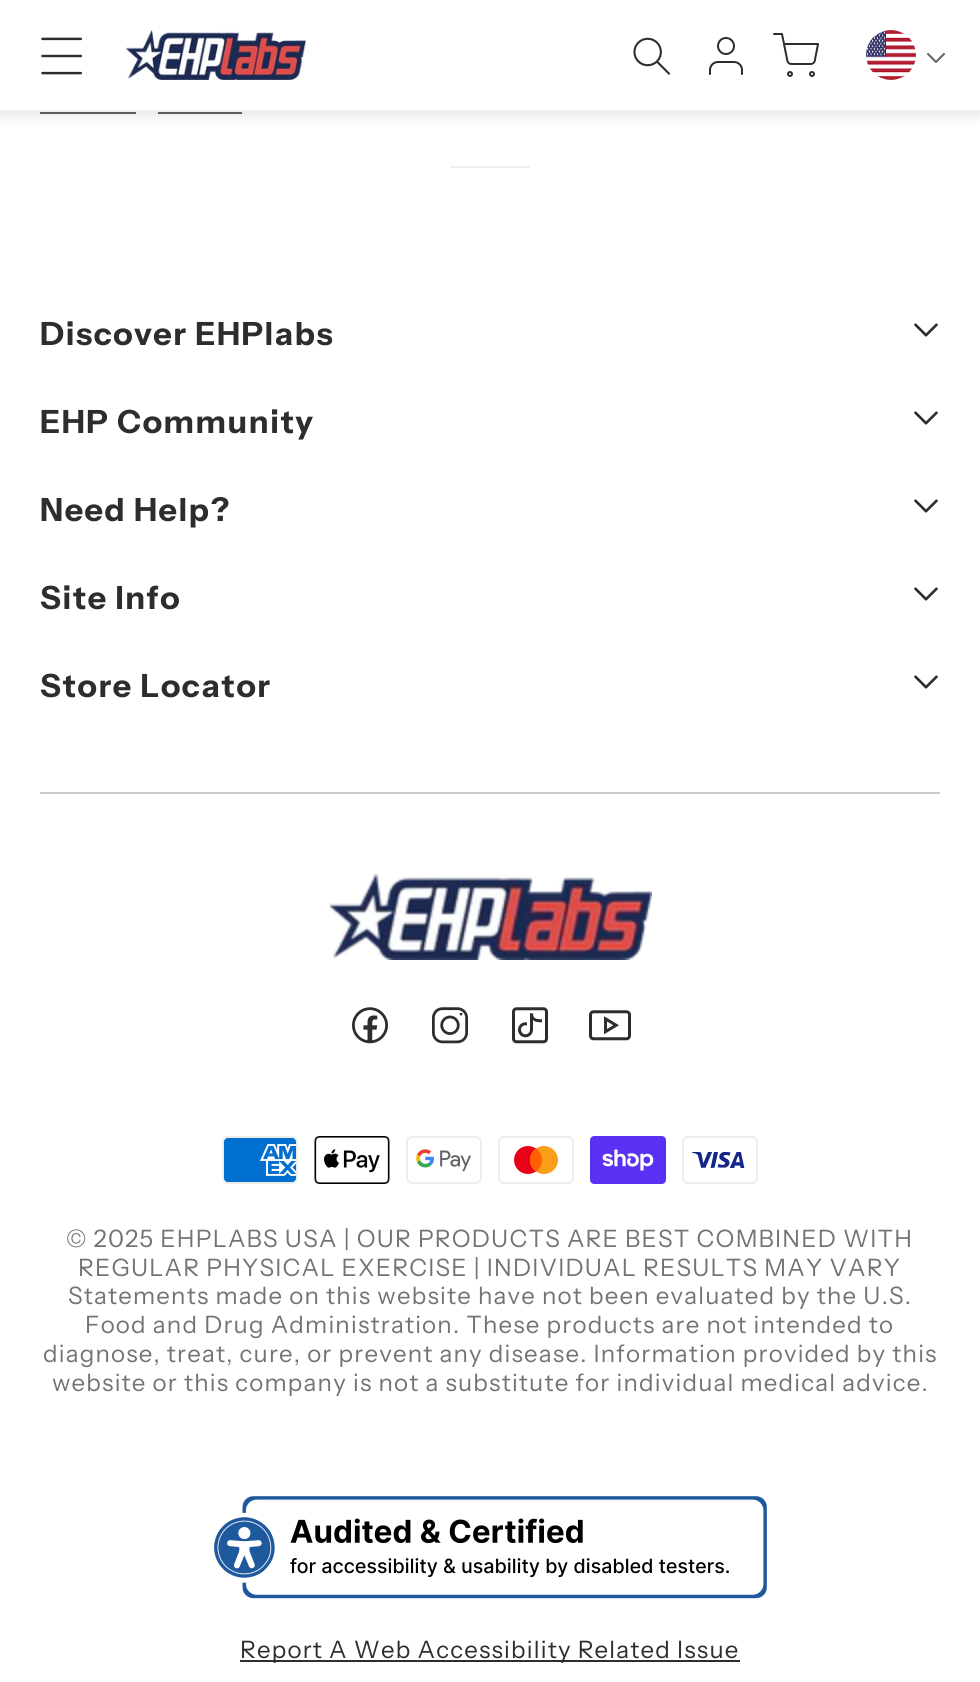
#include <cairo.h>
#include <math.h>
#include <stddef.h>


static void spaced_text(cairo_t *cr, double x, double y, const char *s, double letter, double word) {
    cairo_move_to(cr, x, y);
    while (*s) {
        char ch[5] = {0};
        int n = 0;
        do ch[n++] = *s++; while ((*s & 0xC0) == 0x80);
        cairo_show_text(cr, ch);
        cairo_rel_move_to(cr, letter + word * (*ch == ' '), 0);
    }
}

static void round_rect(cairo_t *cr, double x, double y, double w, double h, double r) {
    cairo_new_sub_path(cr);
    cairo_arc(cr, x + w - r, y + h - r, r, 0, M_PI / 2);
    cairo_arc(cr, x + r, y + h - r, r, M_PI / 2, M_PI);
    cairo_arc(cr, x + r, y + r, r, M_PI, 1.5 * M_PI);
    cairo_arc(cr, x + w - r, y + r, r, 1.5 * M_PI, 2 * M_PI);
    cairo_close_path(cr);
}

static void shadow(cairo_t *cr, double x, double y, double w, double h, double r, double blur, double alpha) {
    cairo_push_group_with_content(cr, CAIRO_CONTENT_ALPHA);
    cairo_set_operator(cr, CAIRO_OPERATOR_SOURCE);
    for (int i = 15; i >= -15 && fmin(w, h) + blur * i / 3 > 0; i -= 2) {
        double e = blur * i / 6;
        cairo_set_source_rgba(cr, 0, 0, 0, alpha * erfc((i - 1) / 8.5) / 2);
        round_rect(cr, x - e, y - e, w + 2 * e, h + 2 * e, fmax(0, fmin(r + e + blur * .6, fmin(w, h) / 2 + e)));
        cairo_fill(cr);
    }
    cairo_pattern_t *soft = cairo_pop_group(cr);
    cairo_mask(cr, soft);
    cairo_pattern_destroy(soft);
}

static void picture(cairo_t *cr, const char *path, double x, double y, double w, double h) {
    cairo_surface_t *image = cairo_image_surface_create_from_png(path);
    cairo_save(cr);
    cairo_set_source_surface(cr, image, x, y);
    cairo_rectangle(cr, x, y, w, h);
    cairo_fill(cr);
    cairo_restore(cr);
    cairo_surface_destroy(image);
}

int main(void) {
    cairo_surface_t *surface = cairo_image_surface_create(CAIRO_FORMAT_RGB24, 980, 1682);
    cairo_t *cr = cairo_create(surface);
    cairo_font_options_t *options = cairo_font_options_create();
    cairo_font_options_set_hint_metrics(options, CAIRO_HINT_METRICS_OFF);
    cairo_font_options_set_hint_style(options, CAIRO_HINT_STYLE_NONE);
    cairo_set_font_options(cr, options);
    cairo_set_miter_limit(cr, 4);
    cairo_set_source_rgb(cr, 1, 1, 1);
    cairo_paint(cr);
    cairo_set_source_rgb(cr, 0.384, 0.384, 0.384);
    cairo_rectangle(cr, 40, 112, 96, 2);
    cairo_fill(cr);
    cairo_rectangle(cr, 158, 112, 84, 2);
    cairo_fill(cr);
    cairo_set_source_rgb(cr, 0, 0, 0);
    shadow(cr, 0, 4, 980, 112, 0, 6, 0.1);
    cairo_set_source_rgb(cr, 1, 1, 1);
    cairo_rectangle(cr, 0, 0, 980, 110);
    cairo_fill(cr);
    cairo_set_source_rgb(cr, 0.945, 0.945, 0.945);
    cairo_rectangle(cr, 0, 110, 980, 2);
    cairo_fill(cr);
    picture(cr, "img1.png", 41, 37, 41, 38);
    picture(cr, "img2.png", 126, 30, 180, 50);
    picture(cr, "img3.png", 633, 37, 37, 38);
    picture(cr, "img4.png", 709, 37, 34, 38);
    picture(cr, "img5.png", 773, 33, 46, 44);
    picture(cr, "img6.png", 866, 30, 50, 50);
    picture(cr, "img7.png", 927, 53, 18, 10);
    cairo_rectangle(cr, 450, 166, 80, 2);
    cairo_fill(cr);
    cairo_select_font_face(cr, "Instrument Sans", CAIRO_FONT_SLANT_NORMAL, CAIRO_FONT_WEIGHT_BOLD);
    cairo_set_font_size(cr, 32);
    cairo_set_source_rgb(cr, 0.176, 0.176, 0.176);
    spaced_text(cr, 40, 345, "Discover EHPlabs", 1.6, 0);
    picture(cr, "img8.png", 914, 323, 24, 14);
    spaced_text(cr, 40, 433, "EHP Community", 1.6, 0);
    picture(cr, "img8.png", 914, 411, 24, 14);
    spaced_text(cr, 40, 521, "Need Help?", 1.6, 0);
    picture(cr, "img8.png", 914, 499, 24, 14);
    spaced_text(cr, 40, 609, "Site Info", 1.6, 0);
    picture(cr, "img8.png", 914, 587, 24, 14);
    spaced_text(cr, 40, 697, "Store Locator", 1.6, 0);
    picture(cr, "img8.png", 914, 675, 24, 14);
    cairo_set_source_rgb(cr, 0.788, 0.788, 0.788);
    cairo_rectangle(cr, 40, 792, 900, 2);
    cairo_fill(cr);
    picture(cr, "img9.png", 330, 874, 322, 86);
    picture(cr, "img10.png", 352, 1007, 36, 37);
    picture(cr, "img11.png", 432, 1007, 36, 37);
    picture(cr, "img12.png", 512, 1007, 36, 37);
    picture(cr, "img13.png", 589, 1010, 42, 31);
    picture(cr, "img14.png", 222, 1136, 76, 48);
    picture(cr, "img15.png", 314, 1136, 76, 48);
    picture(cr, "img16.png", 406, 1136, 76, 48);
    picture(cr, "img17.png", 498, 1136, 76, 48);
    picture(cr, "img18.png", 590, 1136, 76, 48);
    picture(cr, "img19.png", 682, 1136, 76, 48);
    cairo_select_font_face(cr, "Instrument Sans", CAIRO_FONT_SLANT_NORMAL, CAIRO_FONT_WEIGHT_NORMAL);
    cairo_set_font_size(cr, 24);
    cairo_set_source_rgb(cr, 0.451, 0.451, 0.451);
    spaced_text(cr, 66, 1247, "© 2025 EHPLABS USA | OUR PRODUCTS ARE BEST COMBINED WITH", 1.2, 0);
    spaced_text(cr, 78, 1276, "REGULAR PHYSICAL EXERCISE | INDIVIDUAL RESULTS MAY VARY", 1.2, 0);
    spaced_text(cr, 68, 1304, "Statements made on this website have not been evaluated by the U.S.", 1.2, 0);
    spaced_text(cr, 85, 1333, "Food and Drug Administration. These products are not intended to", 1.2, 0);
    spaced_text(cr, 43, 1362, "diagnose, treat, cure, or prevent any disease. Information provided by this", 1.2, 0);
    spaced_text(cr, 52, 1391, "website or this company is not a substitute for individual medical advice.", 1.2, 0);
    picture(cr, "img20.png", 214, 1496, 553, 103);
    cairo_set_source_rgb(cr, 0.176, 0.176, 0.176);
    cairo_rectangle(cr, 240, 1660, 500, 2);
    cairo_fill(cr);
    spaced_text(cr, 240, 1658, "Report A Web Accessibility Related Issue", 1.2, 0);
    cairo_surface_write_to_png(surface, "page.png");
    cairo_font_options_destroy(options);
    cairo_destroy(cr);
    cairo_surface_destroy(surface);
    return 0;
}
